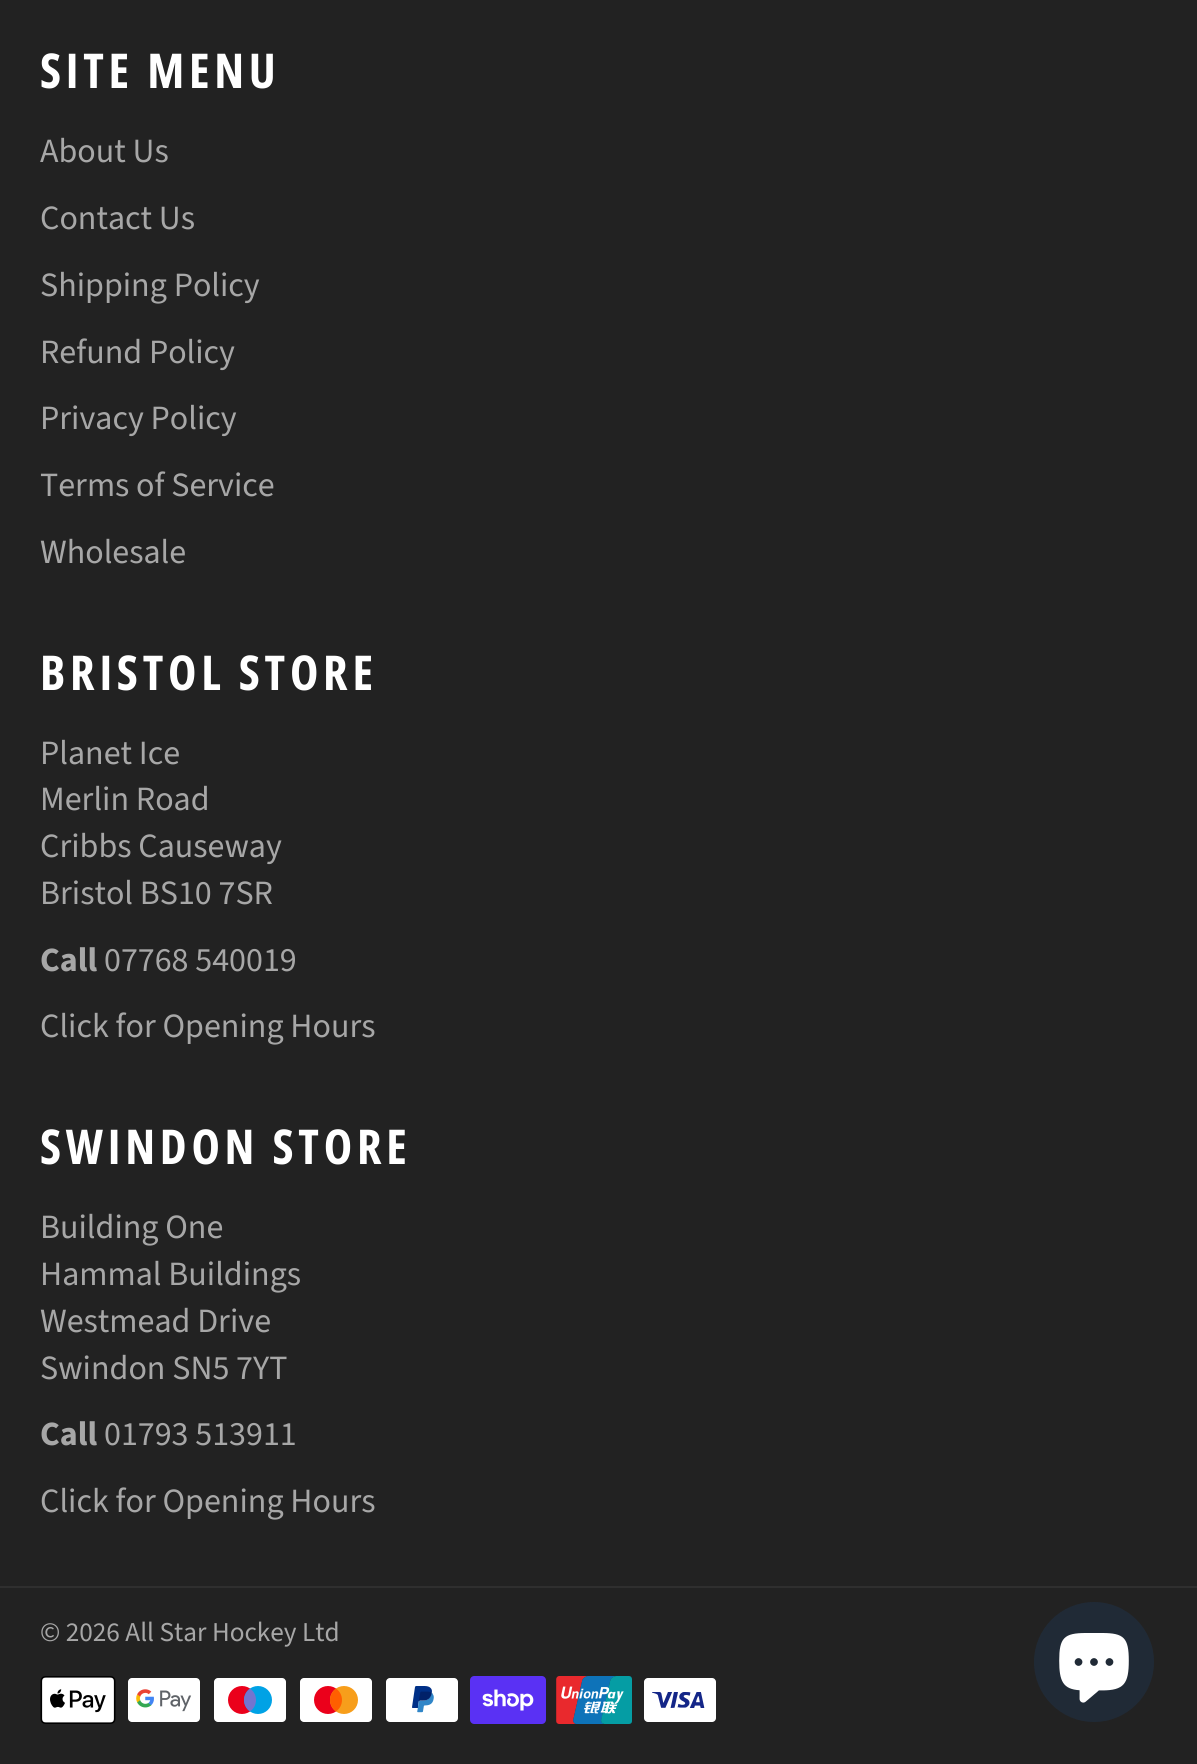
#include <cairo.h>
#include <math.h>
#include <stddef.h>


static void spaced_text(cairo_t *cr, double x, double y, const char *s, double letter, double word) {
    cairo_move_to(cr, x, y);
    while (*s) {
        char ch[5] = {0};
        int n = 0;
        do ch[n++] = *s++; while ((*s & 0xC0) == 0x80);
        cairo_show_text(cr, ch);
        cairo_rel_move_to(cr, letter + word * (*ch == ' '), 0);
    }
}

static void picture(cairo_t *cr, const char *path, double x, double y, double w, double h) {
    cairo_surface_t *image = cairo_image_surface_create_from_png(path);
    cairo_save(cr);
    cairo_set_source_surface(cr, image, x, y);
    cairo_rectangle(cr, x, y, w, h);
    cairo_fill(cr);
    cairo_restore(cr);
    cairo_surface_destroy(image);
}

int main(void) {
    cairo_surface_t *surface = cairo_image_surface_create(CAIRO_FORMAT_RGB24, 1197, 1764);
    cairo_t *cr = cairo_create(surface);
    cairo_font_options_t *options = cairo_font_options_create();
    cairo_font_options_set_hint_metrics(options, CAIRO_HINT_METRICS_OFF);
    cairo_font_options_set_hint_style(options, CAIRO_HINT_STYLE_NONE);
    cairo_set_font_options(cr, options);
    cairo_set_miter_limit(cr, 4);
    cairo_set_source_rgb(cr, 0.133, 0.133, 0.133);
    cairo_paint(cr);
    cairo_select_font_face(cr, "Open Sans Condensed", CAIRO_FONT_SLANT_NORMAL, CAIRO_FONT_WEIGHT_BOLD);
    cairo_set_font_size(cr, 48);
    cairo_set_source_rgb(cr, 1, 1, 1);
    spaced_text(cr, 40, 88, "SITE MENU", 4.75, 0);
    cairo_select_font_face(cr, "Source Sans Pro", CAIRO_FONT_SLANT_NORMAL, CAIRO_FONT_WEIGHT_NORMAL);
    cairo_set_font_size(cr, 34);
    cairo_set_source_rgb(cr, 0.655, 0.655, 0.655);
    cairo_move_to(cr, 40, 162);
    cairo_show_text(cr, "About Us");
    cairo_move_to(cr, 40, 229);
    cairo_show_text(cr, "Contact Us");
    cairo_move_to(cr, 40, 296);
    cairo_show_text(cr, "Shipping Policy");
    cairo_move_to(cr, 40, 363);
    cairo_show_text(cr, "Refund Policy");
    cairo_move_to(cr, 40, 429);
    cairo_show_text(cr, "Privacy Policy");
    cairo_move_to(cr, 40, 496);
    cairo_show_text(cr, "Terms of Service");
    cairo_move_to(cr, 40, 563);
    cairo_show_text(cr, "Wholesale");
    cairo_select_font_face(cr, "Open Sans Condensed", CAIRO_FONT_SLANT_NORMAL, CAIRO_FONT_WEIGHT_BOLD);
    cairo_set_font_size(cr, 48);
    cairo_set_source_rgb(cr, 1, 1, 1);
    spaced_text(cr, 40, 690, "BRISTOL STORE", 4.75, 0);
    cairo_select_font_face(cr, "Source Sans Pro", CAIRO_FONT_SLANT_NORMAL, CAIRO_FONT_WEIGHT_NORMAL);
    cairo_set_font_size(cr, 34);
    cairo_set_source_rgb(cr, 0.655, 0.655, 0.655);
    cairo_move_to(cr, 40, 764);
    cairo_show_text(cr, "Planet Ice");
    cairo_move_to(cr, 40, 810);
    cairo_show_text(cr, "Merlin Road");
    cairo_move_to(cr, 40, 857);
    cairo_show_text(cr, "Cribbs Causeway");
    cairo_move_to(cr, 40, 904);
    cairo_show_text(cr, "Bristol BS10 7SR");
    cairo_select_font_face(cr, "Source Sans Pro", CAIRO_FONT_SLANT_NORMAL, CAIRO_FONT_WEIGHT_BOLD);
    cairo_move_to(cr, 40, 971);
    cairo_show_text(cr, "Call");
    cairo_select_font_face(cr, "Source Sans Pro", CAIRO_FONT_SLANT_NORMAL, CAIRO_FONT_WEIGHT_NORMAL);
    cairo_move_to(cr, 104, 971);
    cairo_show_text(cr, "07768 540019");
    cairo_move_to(cr, 40, 1037);
    cairo_show_text(cr, "Click for Opening Hours");
    cairo_select_font_face(cr, "Open Sans Condensed", CAIRO_FONT_SLANT_NORMAL, CAIRO_FONT_WEIGHT_BOLD);
    cairo_set_font_size(cr, 48);
    cairo_set_source_rgb(cr, 1, 1, 1);
    spaced_text(cr, 40, 1164, "SWINDON STORE", 4.75, 0);
    cairo_select_font_face(cr, "Source Sans Pro", CAIRO_FONT_SLANT_NORMAL, CAIRO_FONT_WEIGHT_NORMAL);
    cairo_set_font_size(cr, 34);
    cairo_set_source_rgb(cr, 0.655, 0.655, 0.655);
    cairo_move_to(cr, 40, 1238);
    cairo_show_text(cr, "Building One");
    cairo_move_to(cr, 40, 1285);
    cairo_show_text(cr, "Hammal Buildings");
    cairo_move_to(cr, 40, 1332);
    cairo_show_text(cr, "Westmead Drive");
    cairo_move_to(cr, 40, 1379);
    cairo_show_text(cr, "Swindon SN5 7YT");
    cairo_select_font_face(cr, "Source Sans Pro", CAIRO_FONT_SLANT_NORMAL, CAIRO_FONT_WEIGHT_BOLD);
    cairo_move_to(cr, 40, 1445);
    cairo_show_text(cr, "Call");
    cairo_select_font_face(cr, "Source Sans Pro", CAIRO_FONT_SLANT_NORMAL, CAIRO_FONT_WEIGHT_NORMAL);
    cairo_move_to(cr, 104, 1445);
    cairo_show_text(cr, "01793 513911");
    cairo_move_to(cr, 40, 1512);
    cairo_show_text(cr, "Click for Opening Hours");
    cairo_set_source_rgb(cr, 0.184, 0.184, 0.184);
    cairo_rectangle(cr, 0, 1586, 1197, 2);
    cairo_fill(cr);
    cairo_set_font_size(cr, 27.25);
    cairo_set_source_rgb(cr, 0.655, 0.655, 0.655);
    cairo_move_to(cr, 40, 1641);
    cairo_show_text(cr, "© 2026 All Star Hockey Ltd");
    picture(cr, "img1.png", 40, 1676, 76, 48);
    picture(cr, "img2.png", 128, 1678, 72, 44);
    picture(cr, "img3.png", 214, 1678, 72, 44);
    picture(cr, "img4.png", 300, 1678, 72, 44);
    picture(cr, "img5.png", 386, 1678, 72, 44);
    picture(cr, "img6.png", 470, 1676, 76, 48);
    picture(cr, "img7.png", 556, 1676, 76, 48);
    picture(cr, "img8.png", 644, 1678, 72, 44);
    cairo_set_source_rgb(cr, 0.125, 0.165, 0.212);
    cairo_arc(cr, 1094, 1662, 60, 0, 2 * M_PI);
    cairo_fill(cr);
    picture(cr, "img9.png", 1059, 1633, 70, 70);
    cairo_surface_write_to_png(surface, "page.png");
    cairo_font_options_destroy(options);
    cairo_destroy(cr);
    cairo_surface_destroy(surface);
    return 0;
}
